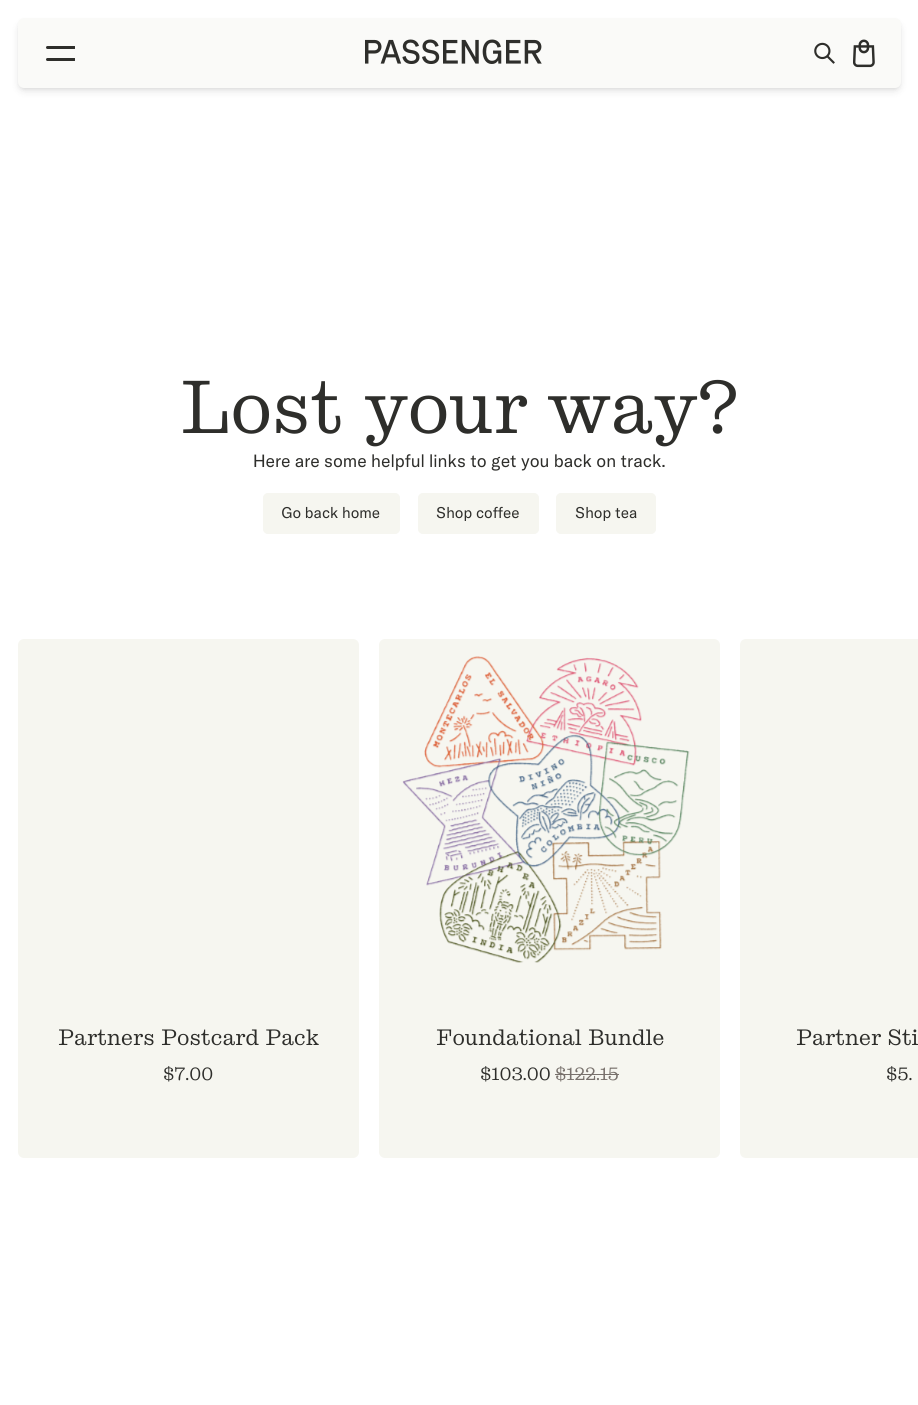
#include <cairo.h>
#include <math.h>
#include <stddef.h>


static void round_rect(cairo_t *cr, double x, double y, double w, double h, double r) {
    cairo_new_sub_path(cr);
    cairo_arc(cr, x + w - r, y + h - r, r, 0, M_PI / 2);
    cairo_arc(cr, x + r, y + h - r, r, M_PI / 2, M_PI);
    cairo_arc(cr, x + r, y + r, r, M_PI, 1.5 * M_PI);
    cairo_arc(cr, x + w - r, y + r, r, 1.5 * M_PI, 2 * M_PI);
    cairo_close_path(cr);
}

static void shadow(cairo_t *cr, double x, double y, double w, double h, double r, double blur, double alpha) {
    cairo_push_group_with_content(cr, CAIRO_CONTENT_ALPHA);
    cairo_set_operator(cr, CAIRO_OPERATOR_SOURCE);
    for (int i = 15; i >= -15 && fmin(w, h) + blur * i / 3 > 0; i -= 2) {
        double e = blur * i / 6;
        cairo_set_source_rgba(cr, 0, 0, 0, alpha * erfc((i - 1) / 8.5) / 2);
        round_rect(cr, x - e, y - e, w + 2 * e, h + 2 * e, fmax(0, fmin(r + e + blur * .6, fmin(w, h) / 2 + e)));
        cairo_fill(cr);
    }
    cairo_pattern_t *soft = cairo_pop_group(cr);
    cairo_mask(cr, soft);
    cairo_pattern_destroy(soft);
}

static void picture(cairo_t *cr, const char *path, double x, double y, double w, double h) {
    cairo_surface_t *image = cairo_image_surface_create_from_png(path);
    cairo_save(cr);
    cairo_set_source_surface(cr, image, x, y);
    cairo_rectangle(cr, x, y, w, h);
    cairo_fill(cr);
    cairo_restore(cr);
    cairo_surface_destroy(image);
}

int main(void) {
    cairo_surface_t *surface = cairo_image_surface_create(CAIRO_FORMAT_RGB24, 918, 1405);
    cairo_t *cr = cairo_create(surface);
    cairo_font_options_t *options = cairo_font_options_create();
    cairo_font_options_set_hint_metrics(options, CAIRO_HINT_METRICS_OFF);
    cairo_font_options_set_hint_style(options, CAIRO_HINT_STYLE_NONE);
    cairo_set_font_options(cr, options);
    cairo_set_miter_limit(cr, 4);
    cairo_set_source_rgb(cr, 1, 1, 1);
    cairo_paint(cr);
    cairo_set_source_rgb(cr, 0, 0, 0);
    shadow(cr, 20, 23, 879, 65, 4, 2.5, 0.1);
    shadow(cr, 19, 24, 881, 67, 5, 4, 0.1);
    cairo_set_source_rgb(cr, 0.98, 0.98, 0.969);
    round_rect(cr, 18, 18, 883, 70, 6);
    cairo_fill(cr);
    cairo_save(cr);
    cairo_rectangle(cr, 31, 31, 44, 44);
    cairo_clip(cr);
    cairo_set_source_rgb(cr, 0.18, 0.18, 0.169);
    round_rect(cr, 46, 46, 30, 3, 1.5);
    cairo_fill(cr);
    round_rect(cr, 46, 58, 30, 3, 1.5);
    cairo_fill(cr);
    cairo_restore(cr);
    picture(cr, "img1.png", 365, 39, 177, 25);
    picture(cr, "img2.png", 814, 42, 21, 22);
    picture(cr, "img3.png", 853, 39, 22, 29);
    cairo_select_font_face(cr, "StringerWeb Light", CAIRO_FONT_SLANT_NORMAL, CAIRO_FONT_WEIGHT_NORMAL);
    cairo_set_font_size(cr, 73.5);
    cairo_set_source_rgb(cr, 0.18, 0.18, 0.169);
    cairo_move_to(cr, 180, 433);
    cairo_show_text(cr, "Lost your way?");
    cairo_select_font_face(cr, "GT America", CAIRO_FONT_SLANT_NORMAL, CAIRO_FONT_WEIGHT_NORMAL);
    cairo_set_font_size(cr, 17.5);
    cairo_move_to(cr, 253, 467);
    cairo_show_text(cr, "Here are some helpful links to get you back on track.");
    cairo_set_source_rgb(cr, 0.961, 0.961, 0.941);
    round_rect(cr, 263.5, 493.5, 136, 40, 4.5);
    cairo_fill_preserve(cr);
    cairo_set_line_width(cr, 1);
    cairo_stroke(cr);
    cairo_set_font_size(cr, 15.25);
    cairo_set_source_rgb(cr, 0.18, 0.18, 0.169);
    cairo_move_to(cr, 281, 518);
    cairo_show_text(cr, "Go back home");
    cairo_set_source_rgb(cr, 0.961, 0.961, 0.941);
    round_rect(cr, 418.5, 493.5, 120, 40, 4.5);
    cairo_fill_preserve(cr);
    cairo_stroke(cr);
    cairo_set_source_rgb(cr, 0.18, 0.18, 0.169);
    cairo_move_to(cr, 436, 518);
    cairo_show_text(cr, "Shop coffee");
    cairo_set_source_rgb(cr, 0.961, 0.961, 0.941);
    round_rect(cr, 556.5, 493.5, 99, 40, 4.5);
    cairo_fill_preserve(cr);
    cairo_stroke(cr);
    cairo_set_source_rgb(cr, 0.18, 0.18, 0.169);
    cairo_move_to(cr, 575, 518);
    cairo_show_text(cr, "Shop tea");
    cairo_set_source_rgb(cr, 0.961, 0.961, 0.941);
    round_rect(cr, 18, 639, 341, 519, 6);
    cairo_fill(cr);
    cairo_select_font_face(cr, "StringerWeb Light", CAIRO_FONT_SLANT_NORMAL, CAIRO_FONT_WEIGHT_NORMAL);
    cairo_set_font_size(cr, 21.9);
    cairo_set_source_rgb(cr, 0.18, 0.18, 0.169);
    cairo_move_to(cr, 58, 1045);
    cairo_show_text(cr, "Partners Postcard Pack");
    cairo_set_font_size(cr, 17.5);
    cairo_move_to(cr, 163, 1080);
    cairo_show_text(cr, "$7.00");
    cairo_set_source_rgb(cr, 0.961, 0.961, 0.941);
    round_rect(cr, 379, 639, 341, 519, 6);
    cairo_fill(cr);
    picture(cr, "img4.png", 402, 656, 288, 307);
    cairo_set_font_size(cr, 21.9);
    cairo_set_source_rgb(cr, 0.18, 0.18, 0.169);
    cairo_move_to(cr, 436, 1045);
    cairo_show_text(cr, "Foundational Bundle");
    cairo_set_font_size(cr, 17.5);
    cairo_move_to(cr, 480, 1080);
    cairo_show_text(cr, "$103.00");
    cairo_set_source_rgb(cr, 0.471, 0.443, 0.424);
    cairo_move_to(cr, 555, 1080);
    cairo_show_text(cr, "$122.15");
    cairo_rectangle(cr, 555, 1074, 64, 1);
    cairo_fill(cr);
    cairo_set_source_rgb(cr, 0.961, 0.961, 0.941);
    cairo_new_path(cr);
    cairo_move_to(cr, 746, 639);
    cairo_line_to(cr, 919, 639);
    cairo_line_to(cr, 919, 1158);
    cairo_line_to(cr, 746, 1158);
    cairo_curve_to(cr, 742.5, 1158, 740, 1155.5, 740, 1152);
    cairo_line_to(cr, 740, 645);
    cairo_curve_to(cr, 740, 641.5, 742.5, 639, 746, 639);
    cairo_close_path(cr);
    cairo_fill(cr);
    cairo_set_font_size(cr, 21.9);
    cairo_set_source_rgb(cr, 0.18, 0.18, 0.169);
    cairo_move_to(cr, 796, 1045);
    cairo_show_text(cr, "Partner Sti");
    cairo_set_font_size(cr, 17.5);
    cairo_move_to(cr, 886, 1080);
    cairo_show_text(cr, "$5.");
    cairo_surface_write_to_png(surface, "page.png");
    cairo_font_options_destroy(options);
    cairo_destroy(cr);
    cairo_surface_destroy(surface);
    return 0;
}
